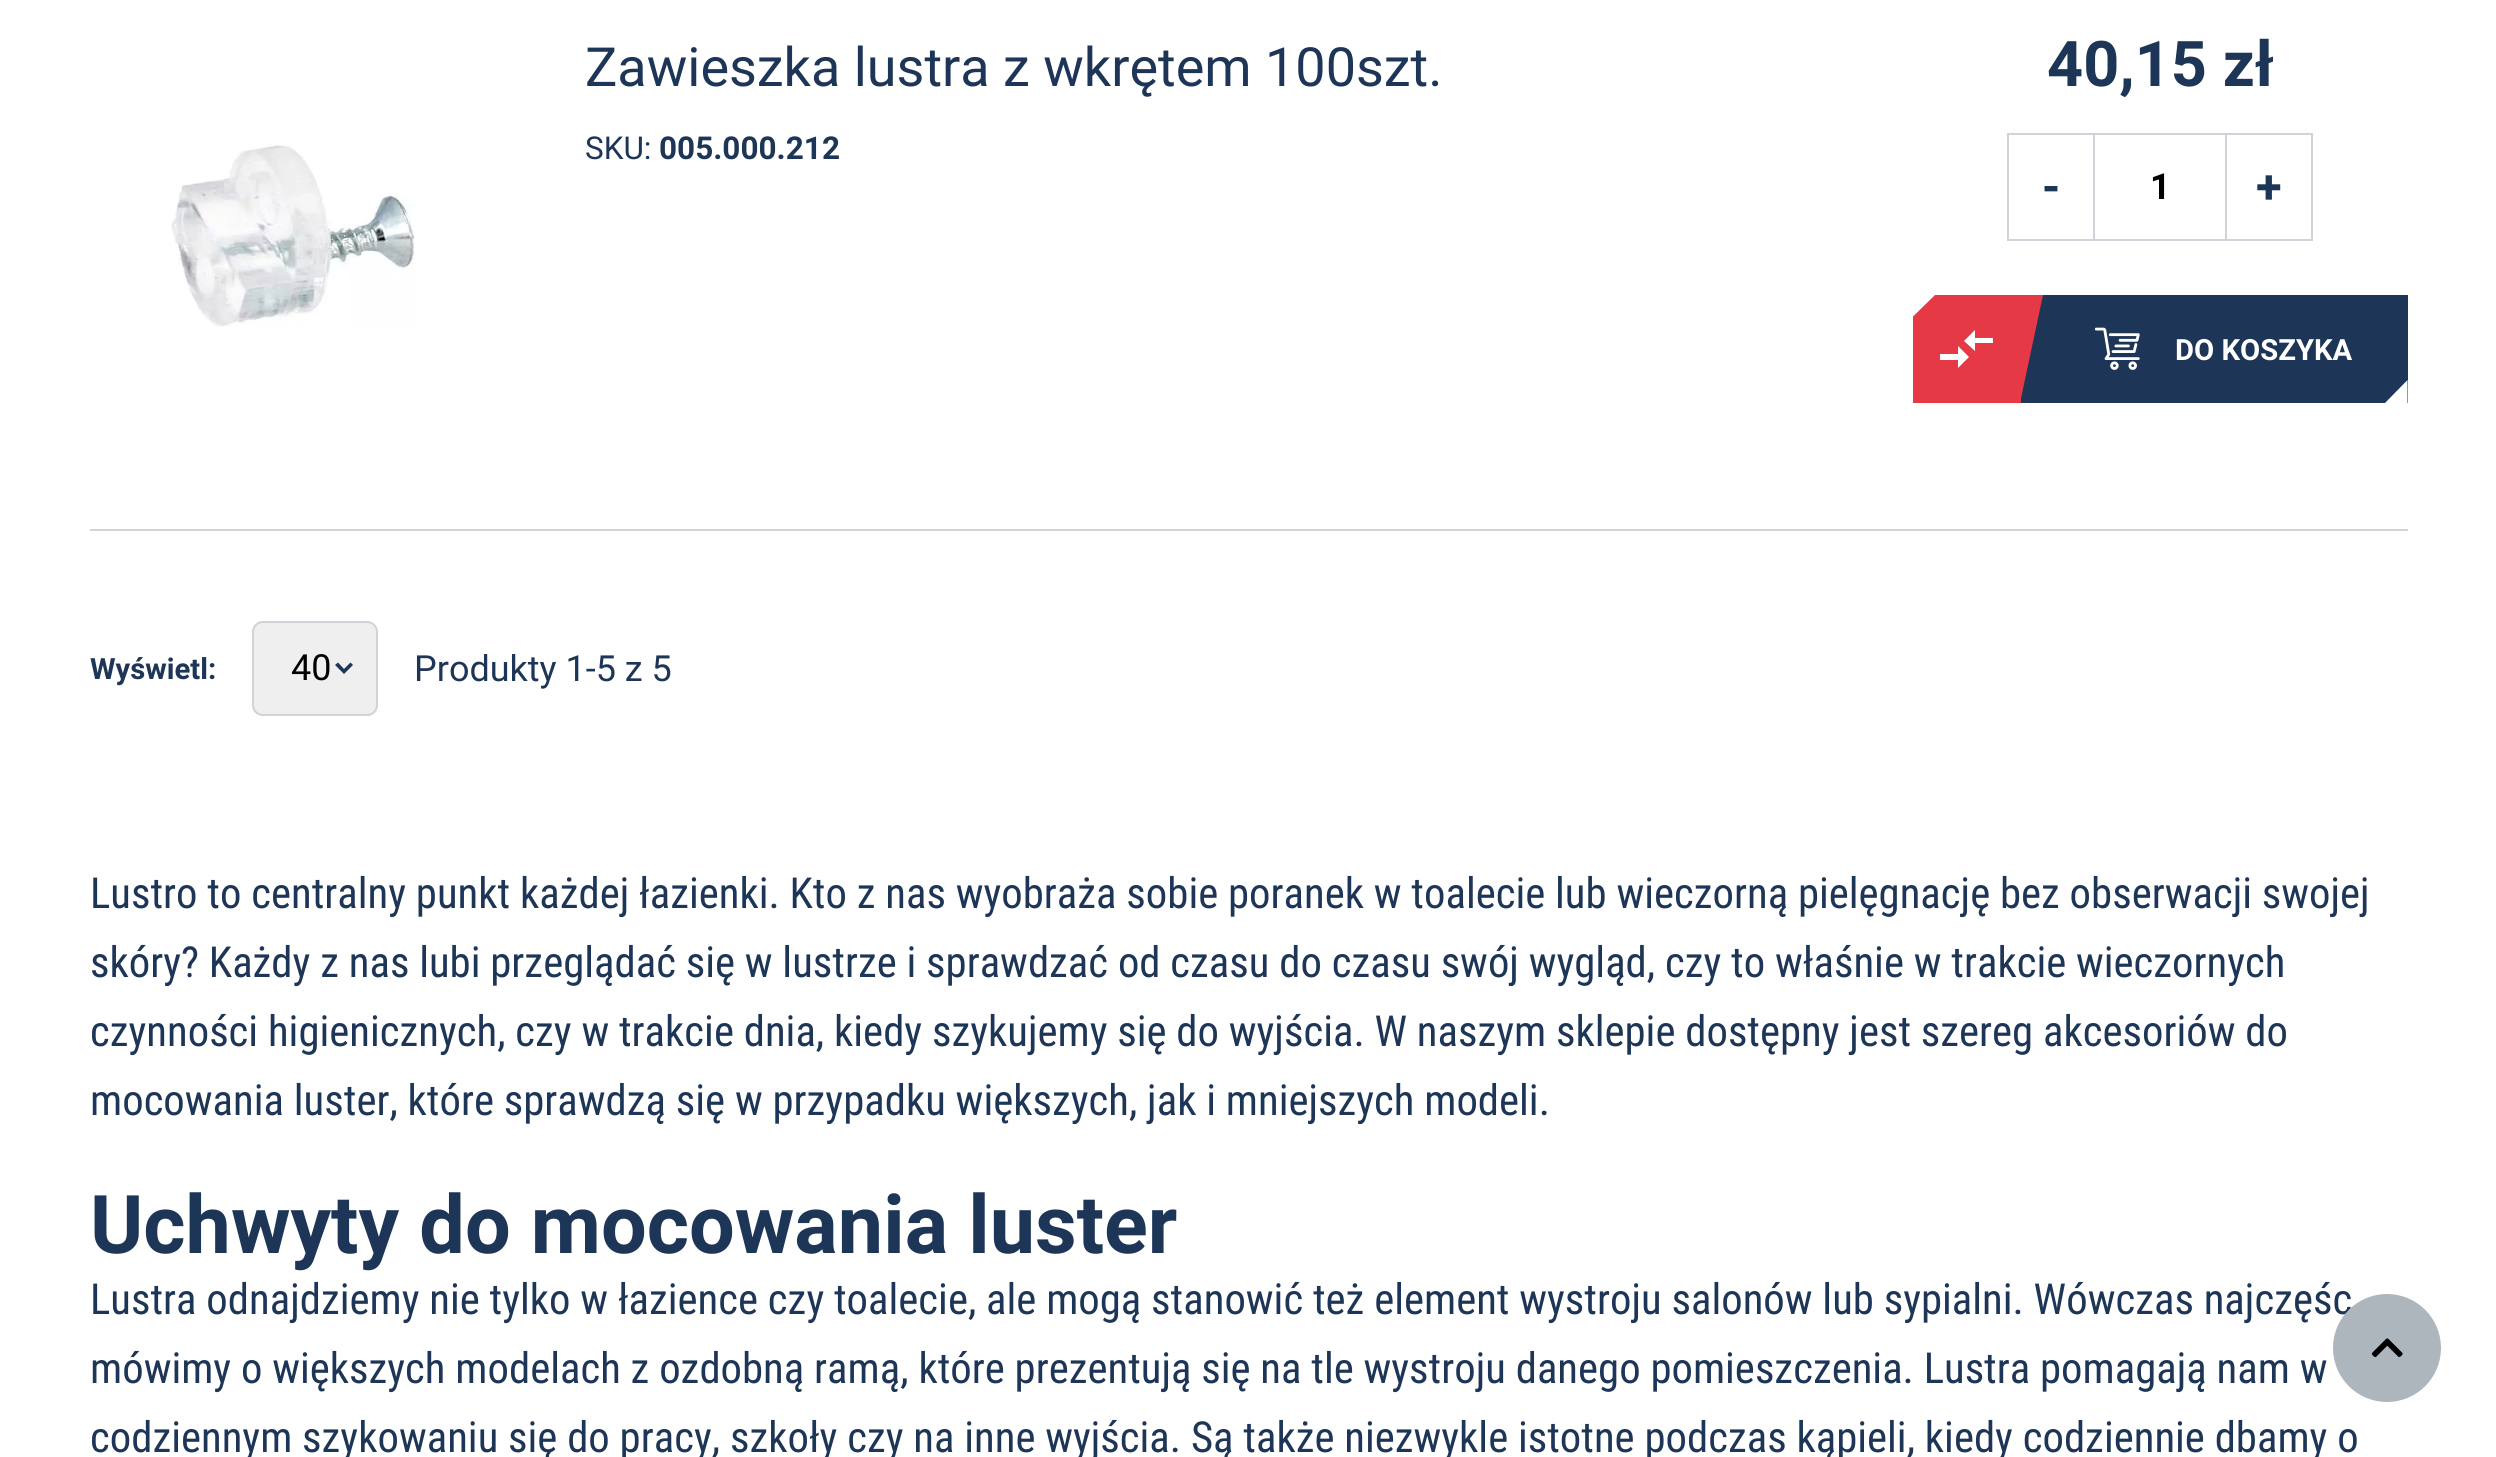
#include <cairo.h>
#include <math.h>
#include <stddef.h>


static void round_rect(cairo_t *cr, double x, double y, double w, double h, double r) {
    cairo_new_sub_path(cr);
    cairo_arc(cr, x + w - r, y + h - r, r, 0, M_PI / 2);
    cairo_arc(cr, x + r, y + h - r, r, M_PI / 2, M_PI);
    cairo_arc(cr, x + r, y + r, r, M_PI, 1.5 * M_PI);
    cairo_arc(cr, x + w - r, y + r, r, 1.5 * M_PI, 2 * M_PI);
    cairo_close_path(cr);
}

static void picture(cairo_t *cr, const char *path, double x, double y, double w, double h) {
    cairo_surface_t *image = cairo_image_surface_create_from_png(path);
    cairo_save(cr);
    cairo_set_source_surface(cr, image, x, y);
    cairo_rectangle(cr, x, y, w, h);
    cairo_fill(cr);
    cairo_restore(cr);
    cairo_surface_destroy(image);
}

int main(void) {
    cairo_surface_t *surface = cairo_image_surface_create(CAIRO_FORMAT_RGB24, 2496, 1457);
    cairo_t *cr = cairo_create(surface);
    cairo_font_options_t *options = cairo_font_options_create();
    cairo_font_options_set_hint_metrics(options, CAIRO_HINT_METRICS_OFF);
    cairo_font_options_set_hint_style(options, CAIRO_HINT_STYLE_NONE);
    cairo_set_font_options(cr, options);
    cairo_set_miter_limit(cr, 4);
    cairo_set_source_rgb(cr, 1, 1, 1);
    cairo_paint(cr);
    cairo_set_source_rgb(cr, 0.808, 0.831, 0.855);
    cairo_rectangle(cr, 90, 529, 2318, 2);
    cairo_fill(cr);
    cairo_select_font_face(cr, "Roboto", CAIRO_FONT_SLANT_NORMAL, CAIRO_FONT_WEIGHT_NORMAL);
    cairo_set_font_size(cr, 54);
    cairo_set_source_rgb(cr, 0.114, 0.208, 0.341);
    cairo_move_to(cr, 585, 86);
    cairo_show_text(cr, "Zawieszka lustra z wkrętem 100szt.");
    cairo_set_font_size(cr, 31.5);
    cairo_move_to(cr, 585, 159);
    cairo_show_text(cr, "SKU:");
    cairo_select_font_face(cr, "Roboto", CAIRO_FONT_SLANT_NORMAL, CAIRO_FONT_WEIGHT_BOLD);
    cairo_move_to(cr, 659, 159);
    cairo_show_text(cr, "005.000.212");
    cairo_set_font_size(cr, 63);
    cairo_move_to(cr, 2047, 86);
    cairo_show_text(cr, "40,15 zł");
    cairo_set_source_rgb(cr, 0.808, 0.831, 0.855);
    cairo_rectangle(cr, 2007, 133, 306, 2);
    cairo_fill(cr);
    cairo_rectangle(cr, 2007, 239, 306, 2);
    cairo_fill(cr);
    cairo_rectangle(cr, 2093, 135, 2, 104);
    cairo_fill(cr);
    cairo_rectangle(cr, 2007, 135, 2, 104);
    cairo_fill(cr);
    cairo_set_font_size(cr, 47);
    cairo_set_source_rgb(cr, 0.114, 0.208, 0.341);
    cairo_move_to(cr, 2042, 203);
    cairo_show_text(cr, "-");
    cairo_set_font_size(cr, 36);
    cairo_set_source_rgb(cr, 0, 0, 0);
    cairo_move_to(cr, 2150, 199);
    cairo_show_text(cr, "1");
    cairo_set_source_rgb(cr, 0.808, 0.831, 0.855);
    cairo_rectangle(cr, 2311, 135, 2, 104);
    cairo_fill(cr);
    cairo_rectangle(cr, 2225, 135, 2, 104);
    cairo_fill(cr);
    cairo_set_font_size(cr, 47);
    cairo_set_source_rgb(cr, 0.114, 0.208, 0.341);
    cairo_move_to(cr, 2256, 203);
    cairo_show_text(cr, "+");
    cairo_set_source_rgb(cr, 0.902, 0.224, 0.275);
    cairo_rectangle(cr, 1913, 295, 108, 108);
    cairo_fill(cr);
    cairo_set_source_rgb(cr, 1, 1, 1);
    cairo_set_fill_rule(cr, CAIRO_FILL_RULE_EVEN_ODD);
    cairo_new_path(cr);
    cairo_move_to(cr, 1958, 354);
    cairo_line_to(cr, 1940, 354);
    cairo_line_to(cr, 1940, 360);
    cairo_line_to(cr, 1958, 360);
    cairo_line_to(cr, 1958, 368);
    cairo_line_to(cr, 1969, 357);
    cairo_line_to(cr, 1958, 346);
    cairo_close_path(cr);
    cairo_move_to(cr, 1975, 338);
    cairo_line_to(cr, 1975, 330);
    cairo_line_to(cr, 1964, 341);
    cairo_line_to(cr, 1975, 351);
    cairo_line_to(cr, 1975, 343);
    cairo_line_to(cr, 1993, 343);
    cairo_line_to(cr, 1993, 338);
    cairo_close_path(cr);
    cairo_fill(cr);
    cairo_save(cr);
    cairo_set_fill_rule(cr, CAIRO_FILL_RULE_WINDING);
    cairo_rectangle(cr, 1913, 295, 495, 108);
    cairo_clip(cr);
    cairo_new_path(cr);
    cairo_move_to(cr, 1912.5, 295);
    cairo_line_to(cr, 1935, 295);
    cairo_line_to(cr, 1912.5, 317);
    cairo_close_path(cr);
    cairo_fill(cr);
    cairo_restore(cr);
    cairo_set_source_rgb(cr, 0.114, 0.208, 0.341);
    cairo_rectangle(cr, 2021, 295, 387, 108);
    cairo_fill(cr);
    cairo_set_source_rgb(cr, 0.902, 0.224, 0.275);
    cairo_set_fill_rule(cr, CAIRO_FILL_RULE_WINDING);
    cairo_new_path(cr);
    cairo_move_to(cr, 2020, 295);
    cairo_line_to(cr, 2043, 295);
    cairo_line_to(cr, 2020, 403);
    cairo_close_path(cr);
    cairo_fill(cr);
    picture(cr, "img1.png", 2095, 327, 45, 43);
    cairo_set_font_size(cr, 29.25);
    cairo_set_source_rgb(cr, 1, 1, 1);
    cairo_move_to(cr, 2175, 360);
    cairo_show_text(cr, "DO KOSZYKA");
    cairo_new_path(cr);
    cairo_move_to(cr, 2407.5, 403);
    cairo_line_to(cr, 2385, 403);
    cairo_line_to(cr, 2407.5, 380);
    cairo_close_path(cr);
    cairo_fill(cr);
    picture(cr, "img2.png", 171, 144, 244, 183);
    cairo_set_source_rgb(cr, 0.114, 0.208, 0.341);
    cairo_move_to(cr, 90, 679);
    cairo_show_text(cr, "Wyświetl:");
    cairo_set_source_rgb(cr, 0.937, 0.937, 0.937);
    round_rect(cr, 252, 621, 126, 95, 11);
    cairo_fill(cr);
    cairo_set_source_rgb(cr, 0.114, 0.208, 0.341);
    cairo_new_path(cr);
    cairo_move_to(cr, 353, 665);
    cairo_line_to(cr, 350.5, 662.5);
    cairo_line_to(cr, 344, 669);
    cairo_line_to(cr, 338, 662.5);
    cairo_line_to(cr, 335, 665);
    cairo_line_to(cr, 344, 674);
    cairo_close_path(cr);
    cairo_fill(cr);
    round_rect(cr, 253, 622, 124, 93, 10);
    cairo_set_source_rgb(cr, 0.808, 0.831, 0.855);
    cairo_stroke(cr);
    cairo_select_font_face(cr, "Roboto", CAIRO_FONT_SLANT_NORMAL, CAIRO_FONT_WEIGHT_NORMAL);
    cairo_set_font_size(cr, 36);
    cairo_set_source_rgb(cr, 0, 0, 0);
    cairo_move_to(cr, 291, 680);
    cairo_show_text(cr, "40");
    cairo_set_source_rgb(cr, 0.114, 0.208, 0.341);
    cairo_move_to(cr, 414, 681);
    cairo_show_text(cr, "Produkty 1-5 z 5");
    cairo_select_font_face(cr, "Roboto Condensed", CAIRO_FONT_SLANT_NORMAL, CAIRO_FONT_WEIGHT_NORMAL);
    cairo_set_font_size(cr, 42.75);
    cairo_move_to(cr, 90, 908);
    cairo_show_text(cr, "Lustro to centralny punkt każdej łazienki. Kto z nas wyobraża sobie poranek w toalecie lub wieczorną pielęgnację bez obserwacji swojej");
    cairo_move_to(cr, 90, 977);
    cairo_show_text(cr, "skóry? Każdy z nas lubi przeglądać się w lustrze i sprawdzać od czasu do czasu swój wygląd, czy to właśnie w trakcie wieczornych");
    cairo_move_to(cr, 90, 1046);
    cairo_show_text(cr, "czynności higienicznych, czy w trakcie dnia, kiedy szykujemy się do wyjścia. W naszym sklepie dostępny jest szereg akcesoriów do");
    cairo_move_to(cr, 90, 1115);
    cairo_show_text(cr, "mocowania luster, które sprawdzą się w przypadku większych, jak i mniejszych modeli.");
    cairo_select_font_face(cr, "Roboto", CAIRO_FONT_SLANT_NORMAL, CAIRO_FONT_WEIGHT_BOLD);
    cairo_set_font_size(cr, 81);
    cairo_move_to(cr, 90, 1253);
    cairo_show_text(cr, "Uchwyty do mocowania luster");
    cairo_select_font_face(cr, "Roboto Condensed", CAIRO_FONT_SLANT_NORMAL, CAIRO_FONT_WEIGHT_NORMAL);
    cairo_set_font_size(cr, 42.75);
    cairo_move_to(cr, 90, 1314);
    cairo_show_text(cr, "Lustra odnajdziemy nie tylko w łazience czy toalecie, ale mogą stanowić też element wystroju salonów lub sypialni. Wówczas najczęśc");
    cairo_move_to(cr, 90, 1383);
    cairo_show_text(cr, "mówimy o większych modelach z ozdobną ramą, które prezentują się na tle wystroju danego pomieszczenia. Lustra pomagają nam w");
    cairo_move_to(cr, 90, 1452);
    cairo_show_text(cr, "codziennym szykowaniu się do pracy, szkoły czy na inne wyjścia. Są także niezwykle istotne podczas kąpieli, kiedy codziennie dbamy o");
    cairo_set_source_rgb(cr, 0.678, 0.71, 0.741);
    cairo_new_path(cr);
    cairo_arc(cr, 2387, 1348, 54, 0, 2 * M_PI);
    cairo_fill(cr);
    picture(cr, "img3.png", 2371, 1338, 32, 20);
    cairo_surface_write_to_png(surface, "page.png");
    cairo_font_options_destroy(options);
    cairo_destroy(cr);
    cairo_surface_destroy(surface);
    return 0;
}
